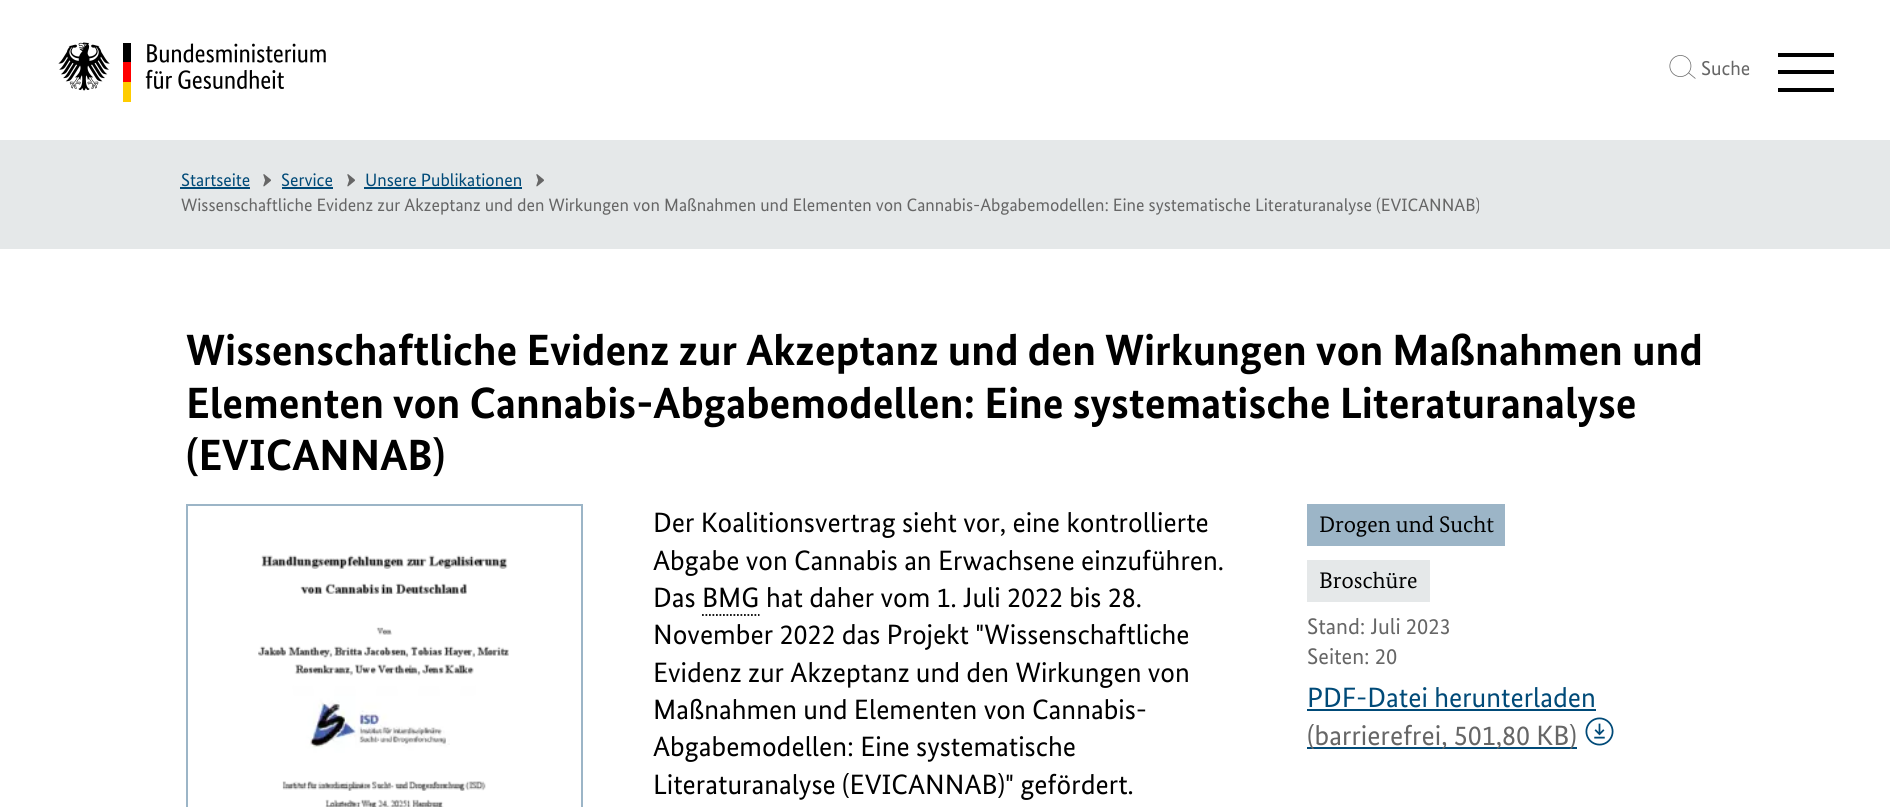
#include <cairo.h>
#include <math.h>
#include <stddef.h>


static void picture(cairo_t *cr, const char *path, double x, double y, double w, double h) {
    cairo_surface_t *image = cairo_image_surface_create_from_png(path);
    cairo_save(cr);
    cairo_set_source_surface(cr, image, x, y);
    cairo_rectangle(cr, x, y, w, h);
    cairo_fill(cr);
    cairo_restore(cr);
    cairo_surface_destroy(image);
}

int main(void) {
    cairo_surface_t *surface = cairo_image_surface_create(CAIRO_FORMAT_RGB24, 1890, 807);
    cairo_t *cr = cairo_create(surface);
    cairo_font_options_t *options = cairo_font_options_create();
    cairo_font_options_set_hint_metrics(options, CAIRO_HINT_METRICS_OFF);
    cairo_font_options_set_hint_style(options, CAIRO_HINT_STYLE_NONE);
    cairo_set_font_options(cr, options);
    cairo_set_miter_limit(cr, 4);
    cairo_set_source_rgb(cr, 1, 1, 1);
    cairo_paint(cr);
    picture(cr, "img1.png", 58, 42, 268, 60);
    picture(cr, "img2.png", 1669, 55, 27, 24);
    cairo_select_font_face(cr, "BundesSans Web", CAIRO_FONT_SLANT_NORMAL, CAIRO_FONT_WEIGHT_NORMAL);
    cairo_set_font_size(cr, 20);
    cairo_set_source_rgb(cr, 0.4, 0.4, 0.4);
    cairo_move_to(cr, 1701, 75);
    cairo_show_text(cr, "Suche");
    cairo_set_source_rgb(cr, 0, 0, 0);
    cairo_rectangle(cr, 1778, 53, 56, 4);
    cairo_fill(cr);
    cairo_rectangle(cr, 1778, 70, 56, 4);
    cairo_fill(cr);
    cairo_rectangle(cr, 1778, 88, 56, 4);
    cairo_fill(cr);
    cairo_set_source_rgb(cr, 0.898, 0.91, 0.914);
    cairo_rectangle(cr, 0, 140, 1890, 109);
    cairo_fill(cr);
    cairo_set_font_size(cr, 17.92);
    cairo_set_source_rgb(cr, 0, 0.29, 0.471);
    cairo_move_to(cr, 181, 186);
    cairo_show_text(cr, "Startseite");
    cairo_rectangle(cr, 180, 187, 70, 2);
    cairo_fill(cr);
    picture(cr, "img3.png", 263, 174, 8, 13);
    cairo_move_to(cr, 281, 186);
    cairo_show_text(cr, "Service");
    cairo_rectangle(cr, 282, 187, 51, 2);
    cairo_fill(cr);
    picture(cr, "img3.png", 347, 174, 8, 13);
    cairo_move_to(cr, 365, 186);
    cairo_show_text(cr, "Unsere Publikationen");
    cairo_rectangle(cr, 364, 187, 158, 2);
    cairo_fill(cr);
    picture(cr, "img3.png", 536, 174, 8, 13);
    cairo_set_source_rgb(cr, 0.4, 0.4, 0.4);
    cairo_move_to(cr, 181, 211);
    cairo_show_text(cr, "Wissenschaftliche Evidenz zur Akzeptanz und den Wirkungen von Maßnahmen und Elementen von Cannabis-Abgabemodellen: Eine systematische Literaturanalyse (EVICANNAB)");
    cairo_select_font_face(cr, "BundesSans Web", CAIRO_FONT_SLANT_NORMAL, CAIRO_FONT_WEIGHT_BOLD);
    cairo_set_font_size(cr, 43.75);
    cairo_set_source_rgb(cr, 0, 0, 0);
    cairo_move_to(cr, 186, 365);
    cairo_show_text(cr, "Wissenschaftliche Evidenz zur Akzeptanz und den Wirkungen von Maßnahmen und");
    cairo_move_to(cr, 186, 418);
    cairo_show_text(cr, "Elementen von Cannabis-Abgabemodellen: Eine systematische Literaturanalyse");
    cairo_move_to(cr, 186, 470);
    cairo_show_text(cr, "(EVICANNAB)");
    cairo_rectangle(cr, 187, 505, 395, 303);
    cairo_set_source_rgb(cr, 0.612, 0.71, 0.78);
    cairo_stroke(cr);
    picture(cr, "img4.png", 258, 555, 251, 252);
    cairo_select_font_face(cr, "BundesSans Web", CAIRO_FONT_SLANT_NORMAL, CAIRO_FONT_WEIGHT_NORMAL);
    cairo_set_font_size(cr, 28);
    cairo_set_source_rgb(cr, 0, 0, 0);
    cairo_move_to(cr, 653, 532);
    cairo_show_text(cr, "Der Koalitionsvertrag sieht vor, eine kontrollierte");
    cairo_move_to(cr, 653, 570);
    cairo_show_text(cr, "Abgabe von Cannabis an Erwachsene einzuführen.");
    cairo_move_to(cr, 653, 607);
    cairo_show_text(cr, "Das BMG");
    cairo_move_to(cr, 766, 607);
    cairo_show_text(cr, "hat daher vom 1. Juli 2022 bis 28.");
    cairo_new_path(cr);
    cairo_move_to(cr, 702, 615);
    cairo_line_to(cr, 759.5, 615);
    cairo_set_line_width(cr, 1.8);
    cairo_set_dash(cr, (double[]){1.75, 1.75}, 2, 0);
    cairo_stroke(cr);
    cairo_move_to(cr, 653, 644);
    cairo_show_text(cr, "November 2022 das Projekt \"Wissenschaftliche");
    cairo_move_to(cr, 653, 682);
    cairo_show_text(cr, "Evidenz zur Akzeptanz und den Wirkungen von");
    cairo_move_to(cr, 653, 719);
    cairo_show_text(cr, "Maßnahmen und Elementen von Cannabis-");
    cairo_move_to(cr, 653, 756);
    cairo_show_text(cr, "Abgabemodellen: Eine systematische");
    cairo_move_to(cr, 653, 794);
    cairo_show_text(cr, "Literaturanalyse (EVICANNAB)\" gefördert.");
    cairo_set_source_rgb(cr, 0.612, 0.71, 0.78);
    cairo_rectangle(cr, 1307, 504, 198, 42);
    cairo_fill(cr);
    cairo_select_font_face(cr, "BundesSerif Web", CAIRO_FONT_SLANT_NORMAL, CAIRO_FONT_WEIGHT_NORMAL);
    cairo_set_font_size(cr, 22.5);
    cairo_set_source_rgb(cr, 0, 0, 0);
    cairo_move_to(cr, 1319, 532);
    cairo_show_text(cr, "Drogen und Sucht");
    cairo_set_source_rgb(cr, 0.898, 0.91, 0.914);
    cairo_rectangle(cr, 1307, 560, 123, 42);
    cairo_fill(cr);
    cairo_set_source_rgb(cr, 0, 0, 0);
    cairo_move_to(cr, 1319, 588);
    cairo_show_text(cr, "Broschüre");
    cairo_select_font_face(cr, "BundesSans Web", CAIRO_FONT_SLANT_NORMAL, CAIRO_FONT_WEIGHT_NORMAL);
    cairo_set_source_rgb(cr, 0.4, 0.4, 0.4);
    cairo_move_to(cr, 1307, 634);
    cairo_show_text(cr, "Stand: Juli 2023");
    cairo_move_to(cr, 1307, 664);
    cairo_show_text(cr, "Seiten: 20");
    cairo_set_font_size(cr, 28);
    cairo_set_source_rgb(cr, 0, 0.29, 0.471);
    cairo_move_to(cr, 1307, 707);
    cairo_show_text(cr, "PDF-Datei herunterladen");
    cairo_rectangle(cr, 1307, 709, 289, 2);
    cairo_fill(cr);
    cairo_rectangle(cr, 1307, 747, 270, 2);
    cairo_fill(cr);
    cairo_set_source_rgb(cr, 0.4, 0.4, 0.4);
    cairo_move_to(cr, 1307, 745);
    cairo_show_text(cr, "(barrierefrei, 501,80 KB)");
    picture(cr, "img5.png", 1585, 717, 29, 29);
    cairo_surface_write_to_png(surface, "page.png");
    cairo_font_options_destroy(options);
    cairo_destroy(cr);
    cairo_surface_destroy(surface);
    return 0;
}
